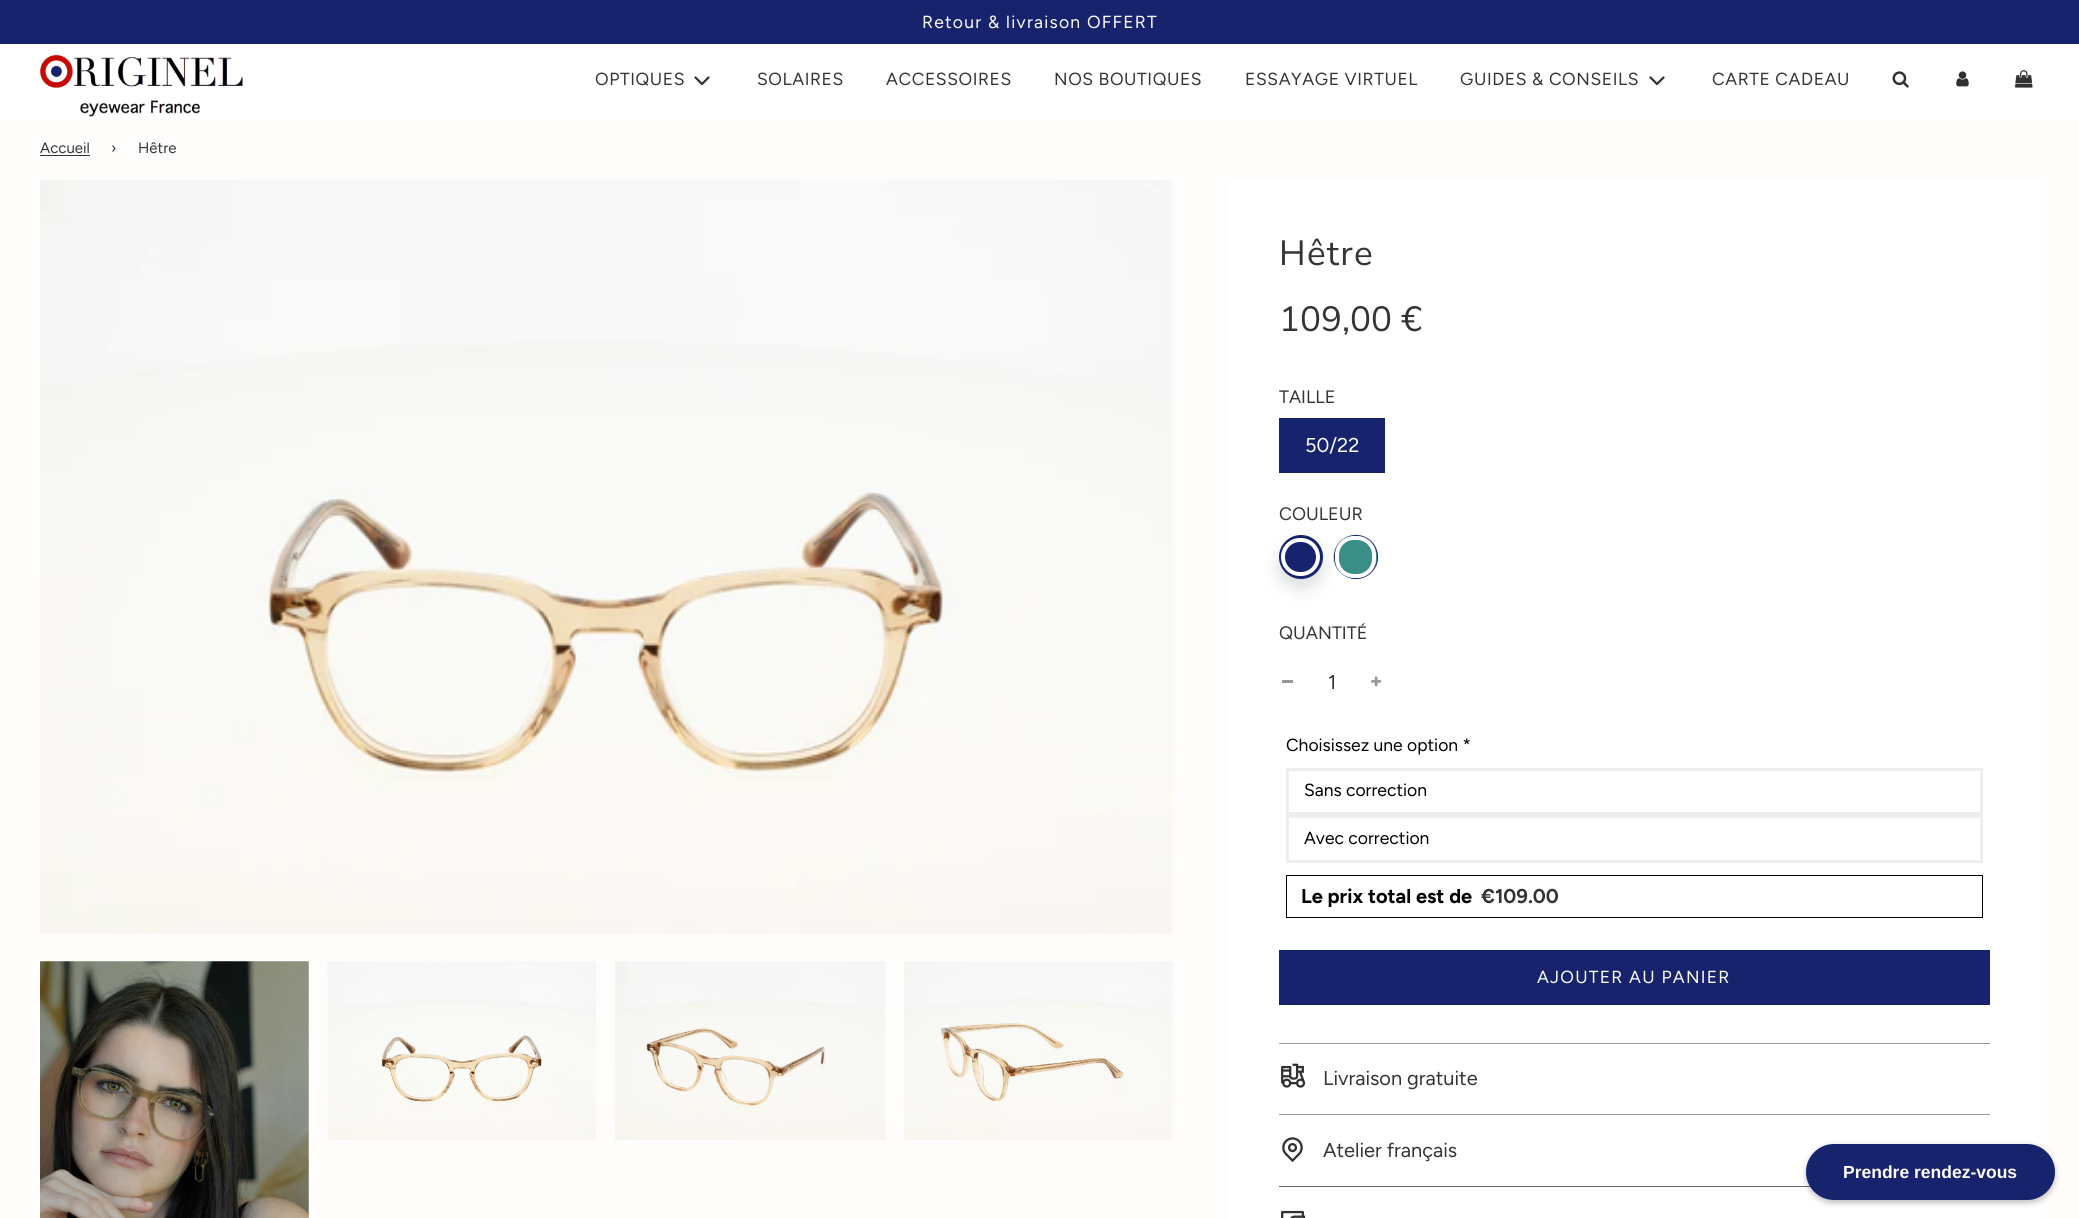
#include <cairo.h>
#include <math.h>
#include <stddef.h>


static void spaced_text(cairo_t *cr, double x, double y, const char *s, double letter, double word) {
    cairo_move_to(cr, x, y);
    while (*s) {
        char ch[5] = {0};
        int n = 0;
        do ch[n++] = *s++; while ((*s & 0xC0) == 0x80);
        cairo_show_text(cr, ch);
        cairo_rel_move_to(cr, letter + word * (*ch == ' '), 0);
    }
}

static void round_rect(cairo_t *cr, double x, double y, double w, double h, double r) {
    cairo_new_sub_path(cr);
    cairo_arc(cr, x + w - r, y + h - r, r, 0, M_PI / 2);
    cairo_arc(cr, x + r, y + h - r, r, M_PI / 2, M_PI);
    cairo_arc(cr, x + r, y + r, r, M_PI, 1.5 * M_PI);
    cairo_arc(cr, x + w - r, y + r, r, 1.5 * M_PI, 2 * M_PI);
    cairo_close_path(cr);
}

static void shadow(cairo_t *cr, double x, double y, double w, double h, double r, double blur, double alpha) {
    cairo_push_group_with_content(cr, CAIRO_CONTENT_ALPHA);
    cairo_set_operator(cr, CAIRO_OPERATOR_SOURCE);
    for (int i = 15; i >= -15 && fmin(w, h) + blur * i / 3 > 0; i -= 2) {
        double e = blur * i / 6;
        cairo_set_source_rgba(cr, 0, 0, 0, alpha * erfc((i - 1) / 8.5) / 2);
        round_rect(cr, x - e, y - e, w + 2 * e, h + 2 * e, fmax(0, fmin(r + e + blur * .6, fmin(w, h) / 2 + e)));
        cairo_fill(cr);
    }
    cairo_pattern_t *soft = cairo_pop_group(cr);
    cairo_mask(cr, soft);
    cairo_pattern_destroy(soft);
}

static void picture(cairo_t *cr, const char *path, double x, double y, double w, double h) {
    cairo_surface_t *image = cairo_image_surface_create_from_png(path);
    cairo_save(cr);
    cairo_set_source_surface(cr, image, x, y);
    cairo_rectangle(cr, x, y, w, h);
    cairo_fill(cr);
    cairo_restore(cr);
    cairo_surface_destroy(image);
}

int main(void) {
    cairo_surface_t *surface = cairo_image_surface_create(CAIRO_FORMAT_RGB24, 2079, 1218);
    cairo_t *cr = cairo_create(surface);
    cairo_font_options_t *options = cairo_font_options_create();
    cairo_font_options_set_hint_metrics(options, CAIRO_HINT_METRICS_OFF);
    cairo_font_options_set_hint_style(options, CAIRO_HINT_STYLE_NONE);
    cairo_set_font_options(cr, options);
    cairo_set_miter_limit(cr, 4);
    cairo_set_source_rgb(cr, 1, 0.988, 0.988);
    cairo_paint(cr);
    cairo_set_source_rgb(cr, 0.09, 0.137, 0.427);
    cairo_rectangle(cr, 0, 0, 2079, 44);
    cairo_fill(cr);
    cairo_select_font_face(cr, "Figtree", CAIRO_FONT_SLANT_NORMAL, CAIRO_FONT_WEIGHT_NORMAL);
    cairo_set_font_size(cr, 17.5);
    cairo_set_source_rgb(cr, 1, 1, 1);
    spaced_text(cr, 922, 28, "Retour & livraison OFFERT", 1.25, 0);
    cairo_rectangle(cr, 0, 44, 2079, 75);
    cairo_fill(cr);
    picture(cr, "img1.png", 40, 54, 203, 63);
    cairo_set_source_rgb(cr, 0.204, 0.204, 0.204);
    spaced_text(cr, 595, 85, "OPTIQUES", 0.6, 0);
    cairo_new_path(cr);
    cairo_move_to(cr, 695.5, 77.5);
    cairo_line_to(cr, 702, 84);
    cairo_line_to(cr, 708.5, 77.5);
    cairo_set_source_rgb(cr, 0.196, 0.192, 0.192);
    cairo_set_line_width(cr, 2.2);
    cairo_set_line_cap(cr, CAIRO_LINE_CAP_ROUND);
    cairo_set_line_join(cr, CAIRO_LINE_JOIN_ROUND);
    cairo_stroke(cr);
    cairo_set_source_rgb(cr, 0.204, 0.204, 0.204);
    spaced_text(cr, 757, 85, "SOLAIRES", 0.6, 0);
    spaced_text(cr, 886, 85, "ACCESSOIRES", 0.6, 0);
    spaced_text(cr, 1054, 85, "NOS BOUTIQUES", 0.6, 0);
    spaced_text(cr, 1245, 85, "ESSAYAGE VIRTUEL", 0.6, 0);
    spaced_text(cr, 1460, 85, "GUIDES & CONSEILS", 0.6, 0);
    cairo_new_path(cr);
    cairo_move_to(cr, 1650.5, 77.5);
    cairo_line_to(cr, 1657, 84);
    cairo_line_to(cr, 1663.5, 77.5);
    cairo_set_source_rgb(cr, 0.196, 0.192, 0.192);
    cairo_stroke(cr);
    cairo_set_source_rgb(cr, 0.204, 0.204, 0.204);
    spaced_text(cr, 1712, 85, "CARTE CADEAU", 0.6, 0);
    picture(cr, "img2.png", 1892, 71, 17, 17);
    picture(cr, "img3.png", 1956, 71, 13, 16);
    picture(cr, "img4.png", 2015, 70, 18, 18);
    cairo_set_font_size(cr, 15);
    cairo_move_to(cr, 40, 153);
    cairo_show_text(cr, "Accueil");
    cairo_rectangle(cr, 40, 155, 50, 1);
    cairo_fill(cr);
    cairo_move_to(cr, 111, 153);
    cairo_show_text(cr, "›");
    cairo_move_to(cr, 138, 153);
    cairo_show_text(cr, "Hêtre");
    picture(cr, "img5.png", 40, 180, 1133, 754);
    picture(cr, "img6.png", 40, 961, 269, 257);
    picture(cr, "img7.png", 327, 961, 269, 179);
    picture(cr, "img8.png", 615, 961, 270, 179);
    picture(cr, "img9.png", 904, 961, 269, 179);
    cairo_set_source_rgb(cr, 1, 1, 1);
    cairo_rectangle(cr, 1229, 180, 811, 1038);
    cairo_fill(cr);
    cairo_select_font_face(cr, "Nunito Sans", CAIRO_FONT_SLANT_NORMAL, CAIRO_FONT_WEIGHT_NORMAL);
    cairo_set_font_size(cr, 35);
    cairo_set_source_rgb(cr, 0.204, 0.204, 0.204);
    spaced_text(cr, 1279, 265, "Hêtre", 1.25, 0);
    cairo_move_to(cr, 1279, 331);
    cairo_show_text(cr, "109,00 €");
    cairo_select_font_face(cr, "Figtree", CAIRO_FONT_SLANT_NORMAL, CAIRO_FONT_WEIGHT_NORMAL);
    cairo_set_font_size(cr, 18);
    cairo_move_to(cr, 1279, 403);
    cairo_show_text(cr, "TAILLE");
    cairo_set_source_rgb(cr, 0.09, 0.137, 0.427);
    cairo_rectangle(cr, 1279, 418, 106, 55);
    cairo_fill(cr);
    cairo_set_font_size(cr, 20);
    cairo_set_source_rgb(cr, 1, 1, 1);
    cairo_move_to(cr, 1305, 452);
    cairo_show_text(cr, "50/22");
    cairo_set_font_size(cr, 18);
    cairo_set_source_rgb(cr, 0.204, 0.204, 0.204);
    cairo_move_to(cr, 1279, 520);
    cairo_show_text(cr, "COULEUR");
    cairo_set_source_rgb(cr, 0.337, 0.373, 0.4);
    shadow(cr, 1279, 544, 44, 44, 22, 8, 0.2);
    cairo_set_source_rgb(cr, 0.09, 0.137, 0.427);
    cairo_arc(cr, 1301, 557, 20.5, 0, 2 * M_PI);
    cairo_fill_preserve(cr);
    cairo_set_line_width(cr, 3);
    cairo_set_line_cap(cr, CAIRO_LINE_CAP_BUTT);
    cairo_set_line_join(cr, CAIRO_LINE_JOIN_MITER);
    cairo_stroke(cr);
    round_rect(cr, 1283, 540, 35, 34, 17);
    cairo_set_source_rgb(cr, 1, 1, 1);
    cairo_set_line_width(cr, 4);
    cairo_stroke(cr);
    picture(cr, "img10.png", 1333, 534, 45, 45);
    cairo_arc(cr, 1356, 557, 21.5, 0, 2 * M_PI);
    cairo_set_source_rgb(cr, 0.09, 0.137, 0.427);
    cairo_set_line_width(cr, 1);
    cairo_stroke(cr);
    round_rect(cr, 1337, 538, 37, 38, 17);
    cairo_set_source_rgb(cr, 1, 1, 1);
    cairo_set_line_width(cr, 4);
    cairo_stroke(cr);
    cairo_set_source_rgb(cr, 0.204, 0.204, 0.204);
    cairo_move_to(cr, 1279, 639);
    cairo_show_text(cr, "QUANTITÉ");
    cairo_set_source_rgb(cr, 0.6, 0.596, 0.596);
    cairo_rectangle(cr, 1282, 680, 11, 3);
    cairo_fill(cr);
    cairo_set_font_size(cr, 20);
    cairo_set_source_rgb(cr, 0.204, 0.204, 0.204);
    cairo_move_to(cr, 1328, 689);
    cairo_show_text(cr, "1");
    picture(cr, "img11.png", 1371, 676, 11, 11);
    cairo_set_font_size(cr, 17.5);
    cairo_set_source_rgb(cr, 0, 0, 0);
    cairo_move_to(cr, 1286, 751);
    cairo_show_text(cr, "Choisissez une option *");
    cairo_rectangle(cr, 1287.5, 769.5, 694, 44);
    cairo_set_source_rgb(cr, 0.933, 0.933, 0.933);
    cairo_set_line_width(cr, 3);
    cairo_stroke(cr);
    cairo_set_source_rgb(cr, 0, 0, 0);
    cairo_move_to(cr, 1304, 796);
    cairo_show_text(cr, "Sans correction");
    cairo_rectangle(cr, 1287.5, 816.5, 694, 45);
    cairo_set_source_rgb(cr, 0.933, 0.933, 0.933);
    cairo_stroke(cr);
    cairo_set_source_rgb(cr, 0, 0, 0);
    cairo_move_to(cr, 1304, 844);
    cairo_show_text(cr, "Avec correction");
    cairo_rectangle(cr, 1286.5, 875.5, 696, 42);
    cairo_set_line_width(cr, 1);
    cairo_stroke(cr);
    cairo_select_font_face(cr, "Figtree", CAIRO_FONT_SLANT_NORMAL, CAIRO_FONT_WEIGHT_BOLD);
    cairo_set_font_size(cr, 20);
    cairo_move_to(cr, 1301, 903);
    cairo_show_text(cr, "Le prix total est de");
    cairo_set_source_rgb(cr, 0.204, 0.204, 0.204);
    cairo_move_to(cr, 1481, 903);
    cairo_show_text(cr, "€109.00");
    cairo_set_source_rgb(cr, 0.09, 0.137, 0.427);
    cairo_rectangle(cr, 1279, 950, 711, 55);
    cairo_fill(cr);
    cairo_select_font_face(cr, "Figtree", CAIRO_FONT_SLANT_NORMAL, CAIRO_FONT_WEIGHT_NORMAL);
    cairo_set_font_size(cr, 17.5);
    cairo_set_source_rgb(cr, 1, 1, 1);
    spaced_text(cr, 1537, 983, "AJOUTER AU PANIER", 1.25, 0);
    cairo_set_source_rgb(cr, 0.6, 0.596, 0.596);
    cairo_rectangle(cr, 1279, 1043, 711, 1);
    cairo_fill(cr);
    cairo_rectangle(cr, 1279, 1114, 711, 1);
    cairo_fill(cr);
    picture(cr, "img12.png", 1281, 1063, 25, 25);
    cairo_set_font_size(cr, 20);
    cairo_set_source_rgb(cr, 0.204, 0.204, 0.204);
    cairo_move_to(cr, 1323, 1085);
    cairo_show_text(cr, "Livraison gratuite");
    picture(cr, "img13.png", 1282, 1137, 21, 26);
    cairo_move_to(cr, 1323, 1157);
    cairo_show_text(cr, "Atelier français");
    cairo_set_source_rgb(cr, 0.4, 0.396, 0.396);
    cairo_rectangle(cr, 1279, 1186, 532, 1);
    cairo_fill(cr);
    picture(cr, "img14.png", 1281, 1210, 25, 8);
    cairo_set_source_rgb(cr, 0, 0, 0);
    shadow(cr, 1806, 1146, 249, 57, 28.5, 3, 0.25);
    cairo_set_source_rgb(cr, 0.09, 0.137, 0.427);
    round_rect(cr, 1806, 1144, 249, 56, 28);
    cairo_fill(cr);
    cairo_select_font_face(cr, "Liberation Sans", CAIRO_FONT_SLANT_NORMAL, CAIRO_FONT_WEIGHT_BOLD);
    cairo_set_font_size(cr, 17.5);
    cairo_set_source_rgb(cr, 1, 1, 1);
    cairo_move_to(cr, 1843, 1178);
    cairo_show_text(cr, "Prendre rendez-vous");
    cairo_surface_write_to_png(surface, "page.png");
    cairo_font_options_destroy(options);
    cairo_destroy(cr);
    cairo_surface_destroy(surface);
    return 0;
}
